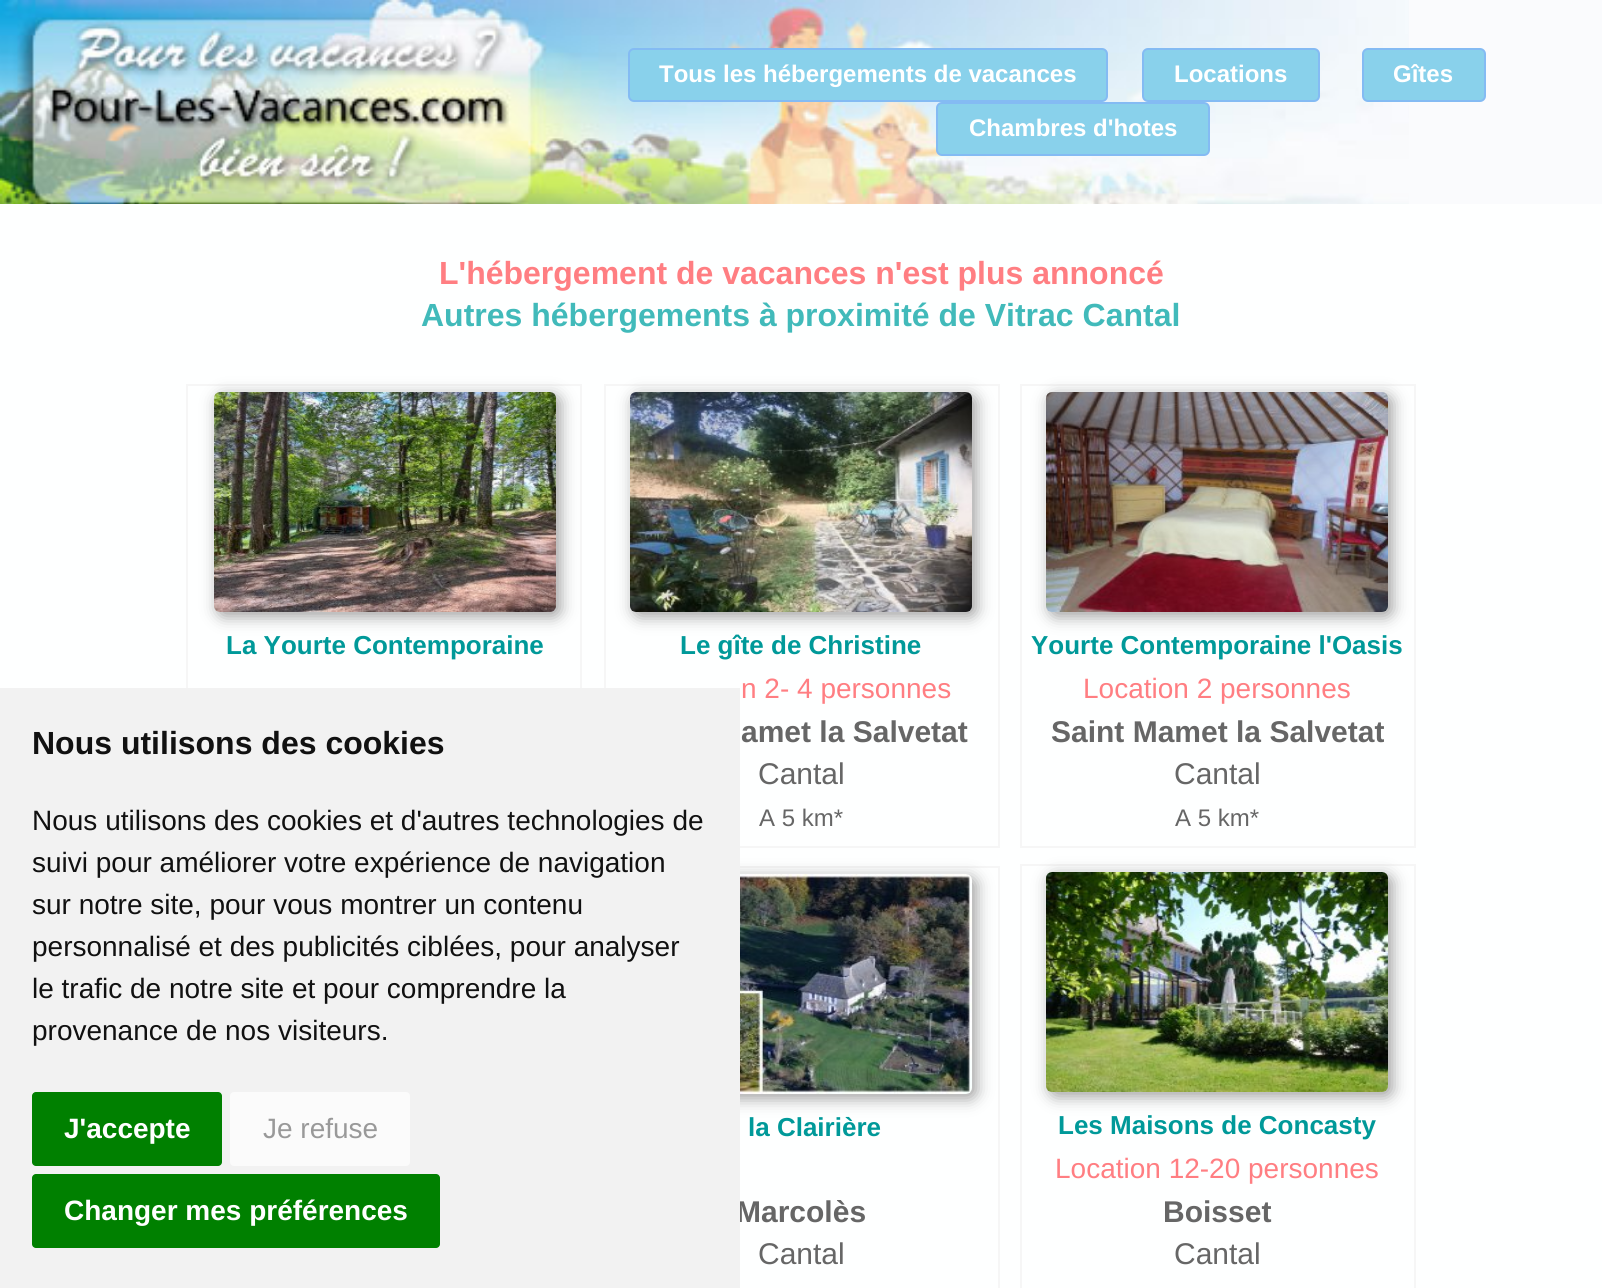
#include <cairo.h>
#include <math.h>
#include <stddef.h>


static void round_rect(cairo_t *cr, double x, double y, double w, double h, double r) {
    cairo_new_sub_path(cr);
    cairo_arc(cr, x + w - r, y + h - r, r, 0, M_PI / 2);
    cairo_arc(cr, x + r, y + h - r, r, M_PI / 2, M_PI);
    cairo_arc(cr, x + r, y + r, r, M_PI, 1.5 * M_PI);
    cairo_arc(cr, x + w - r, y + r, r, 1.5 * M_PI, 2 * M_PI);
    cairo_close_path(cr);
}

static void shadow(cairo_t *cr, double x, double y, double w, double h, double r, double blur, double alpha) {
    cairo_push_group_with_content(cr, CAIRO_CONTENT_ALPHA);
    cairo_set_operator(cr, CAIRO_OPERATOR_SOURCE);
    for (int i = 15; i >= -15 && fmin(w, h) + blur * i / 3 > 0; i -= 2) {
        double e = blur * i / 6;
        cairo_set_source_rgba(cr, 0, 0, 0, alpha * erfc((i - 1) / 8.5) / 2);
        round_rect(cr, x - e, y - e, w + 2 * e, h + 2 * e, fmax(0, fmin(r + e + blur * .6, fmin(w, h) / 2 + e)));
        cairo_fill(cr);
    }
    cairo_pattern_t *soft = cairo_pop_group(cr);
    cairo_mask(cr, soft);
    cairo_pattern_destroy(soft);
}

static void picture(cairo_t *cr, const char *path, double x, double y, double w, double h) {
    cairo_surface_t *image = cairo_image_surface_create_from_png(path);
    cairo_save(cr);
    cairo_set_source_surface(cr, image, x, y);
    cairo_rectangle(cr, x, y, w, h);
    cairo_fill(cr);
    cairo_restore(cr);
    cairo_surface_destroy(image);
}

int main(void) {
    cairo_surface_t *surface = cairo_image_surface_create(CAIRO_FORMAT_RGB24, 1602, 1288);
    cairo_t *cr = cairo_create(surface);
    cairo_font_options_t *options = cairo_font_options_create();
    cairo_font_options_set_hint_metrics(options, CAIRO_HINT_METRICS_OFF);
    cairo_font_options_set_hint_style(options, CAIRO_HINT_STYLE_NONE);
    cairo_set_font_options(cr, options);
    cairo_set_miter_limit(cr, 4);
    cairo_set_source_rgb(cr, 0.996, 1, 1);
    cairo_paint(cr);
    cairo_set_source_rgb(cr, 0.98, 0.984, 0.992);
    cairo_rectangle(cr, 1409, 0, 193, 204);
    cairo_fill(cr);
    picture(cr, "img1.png", 0, 0, 1409, 204);
    cairo_set_source_rgb(cr, 0.537, 0.82, 0.918);
    round_rect(cr, 629, 49, 478, 52, 5);
    cairo_fill_preserve(cr);
    cairo_set_source_rgb(cr, 0.518, 0.733, 0.953);
    cairo_stroke(cr);
    cairo_select_font_face(cr, "Liberation Sans", CAIRO_FONT_SLANT_NORMAL, CAIRO_FONT_WEIGHT_BOLD);
    cairo_set_font_size(cr, 24);
    cairo_set_source_rgb(cr, 1, 1, 1);
    cairo_move_to(cr, 659, 82);
    cairo_show_text(cr, "Tous les hébergements de vacances");
    cairo_set_source_rgb(cr, 0.537, 0.82, 0.918);
    round_rect(cr, 1143, 49, 176, 52, 5);
    cairo_fill_preserve(cr);
    cairo_set_source_rgb(cr, 0.518, 0.733, 0.953);
    cairo_stroke(cr);
    cairo_set_source_rgb(cr, 1, 1, 1);
    cairo_move_to(cr, 1174, 82);
    cairo_show_text(cr, "Locations");
    cairo_set_source_rgb(cr, 0.537, 0.82, 0.918);
    round_rect(cr, 1363, 49, 122, 52, 5);
    cairo_fill_preserve(cr);
    cairo_set_source_rgb(cr, 0.518, 0.733, 0.953);
    cairo_stroke(cr);
    cairo_set_source_rgb(cr, 1, 1, 1);
    cairo_move_to(cr, 1393, 82);
    cairo_show_text(cr, "Gîtes");
    cairo_set_source_rgb(cr, 0.537, 0.82, 0.918);
    round_rect(cr, 937, 103, 272, 52, 5);
    cairo_fill_preserve(cr);
    cairo_set_source_rgb(cr, 0.518, 0.733, 0.953);
    cairo_stroke(cr);
    cairo_set_source_rgb(cr, 1, 1, 1);
    cairo_move_to(cr, 969, 136);
    cairo_show_text(cr, "Chambres d'hotes");
    cairo_set_font_size(cr, 32);
    cairo_set_source_rgb(cr, 1, 0.494, 0.51);
    cairo_move_to(cr, 439, 284);
    cairo_show_text(cr, "L'hébergement de vacances n'est plus annoncé");
    cairo_set_source_rgb(cr, 0.255, 0.729, 0.729);
    cairo_move_to(cr, 421, 326);
    cairo_show_text(cr, "Autres hébergements à proximité de Vitrac Cantal");
    cairo_rectangle(cr, 187, 385, 394, 462);
    cairo_set_source_rgb(cr, 0.961, 0.961, 0.961);
    cairo_stroke(cr);
    cairo_set_source_rgb(cr, 0.608, 0.608, 0.608);
    shadow(cr, 218, 396, 342, 220, 6, 8, 1);
    picture(cr, "img2.png", 214, 392, 342, 220);
    cairo_set_font_size(cr, 26);
    cairo_set_source_rgb(cr, 0, 0.6, 0.6);
    cairo_move_to(cr, 226, 654);
    cairo_show_text(cr, "La Yourte Contemporaine");
    cairo_rectangle(cr, 605, 385, 394, 462);
    cairo_set_source_rgb(cr, 0.961, 0.961, 0.961);
    cairo_stroke(cr);
    cairo_set_source_rgb(cr, 0.608, 0.608, 0.608);
    shadow(cr, 634, 396, 342, 220, 6, 8, 1);
    picture(cr, "img3.png", 630, 392, 342, 220);
    cairo_set_source_rgb(cr, 0, 0.6, 0.6);
    cairo_move_to(cr, 680, 654);
    cairo_show_text(cr, "Le gîte de Christine");
    cairo_select_font_face(cr, "Liberation Sans", CAIRO_FONT_SLANT_NORMAL, CAIRO_FONT_WEIGHT_NORMAL);
    cairo_set_font_size(cr, 28);
    cairo_set_source_rgb(cr, 1, 0.494, 0.51);
    cairo_move_to(cr, 741, 698);
    cairo_show_text(cr, "n 2- 4 personnes");
    cairo_select_font_face(cr, "Liberation Sans", CAIRO_FONT_SLANT_NORMAL, CAIRO_FONT_WEIGHT_BOLD);
    cairo_set_font_size(cr, 30);
    cairo_set_source_rgb(cr, 0.4, 0.4, 0.4);
    cairo_move_to(cr, 741, 742);
    cairo_show_text(cr, "amet la Salvetat");
    cairo_select_font_face(cr, "Liberation Sans", CAIRO_FONT_SLANT_NORMAL, CAIRO_FONT_WEIGHT_NORMAL);
    cairo_move_to(cr, 758, 784);
    cairo_show_text(cr, "Cantal");
    cairo_set_font_size(cr, 24);
    cairo_move_to(cr, 759, 826);
    cairo_show_text(cr, "A 5 km*");
    cairo_rectangle(cr, 1021, 385, 394, 462);
    cairo_set_source_rgb(cr, 0.961, 0.961, 0.961);
    cairo_stroke(cr);
    cairo_set_source_rgb(cr, 0.608, 0.608, 0.608);
    shadow(cr, 1050, 396, 342, 220, 6, 8, 1);
    picture(cr, "img4.png", 1046, 392, 342, 220);
    cairo_select_font_face(cr, "Liberation Sans", CAIRO_FONT_SLANT_NORMAL, CAIRO_FONT_WEIGHT_BOLD);
    cairo_set_font_size(cr, 26);
    cairo_set_source_rgb(cr, 0, 0.6, 0.6);
    cairo_move_to(cr, 1031, 654);
    cairo_show_text(cr, "Yourte Contemporaine l'Oasis");
    cairo_select_font_face(cr, "Liberation Sans", CAIRO_FONT_SLANT_NORMAL, CAIRO_FONT_WEIGHT_NORMAL);
    cairo_set_font_size(cr, 28);
    cairo_set_source_rgb(cr, 1, 0.494, 0.51);
    cairo_move_to(cr, 1083, 698);
    cairo_show_text(cr, "Location 2 personnes");
    cairo_select_font_face(cr, "Liberation Sans", CAIRO_FONT_SLANT_NORMAL, CAIRO_FONT_WEIGHT_BOLD);
    cairo_set_font_size(cr, 30);
    cairo_set_source_rgb(cr, 0.4, 0.4, 0.4);
    cairo_move_to(cr, 1051, 742);
    cairo_show_text(cr, "Saint Mamet la Salvetat");
    cairo_select_font_face(cr, "Liberation Sans", CAIRO_FONT_SLANT_NORMAL, CAIRO_FONT_WEIGHT_NORMAL);
    cairo_move_to(cr, 1174, 784);
    cairo_show_text(cr, "Cantal");
    cairo_set_font_size(cr, 24);
    cairo_move_to(cr, 1175, 826);
    cairo_show_text(cr, "A 5 km*");
    cairo_rectangle(cr, 605, 867, 394, 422);
    cairo_set_source_rgb(cr, 0.961, 0.961, 0.961);
    cairo_stroke(cr);
    cairo_set_source_rgb(cr, 0.608, 0.608, 0.608);
    shadow(cr, 634, 878, 342, 220, 6, 8, 1);
    picture(cr, "img5.png", 740, 874, 232, 220);
    cairo_select_font_face(cr, "Liberation Sans", CAIRO_FONT_SLANT_NORMAL, CAIRO_FONT_WEIGHT_BOLD);
    cairo_set_font_size(cr, 26);
    cairo_set_source_rgb(cr, 0, 0.6, 0.6);
    cairo_move_to(cr, 748, 1136);
    cairo_show_text(cr, "la Clairière");
    cairo_set_font_size(cr, 30);
    cairo_set_source_rgb(cr, 0.4, 0.4, 0.4);
    cairo_move_to(cr, 736, 1222);
    cairo_show_text(cr, "Marcolès");
    cairo_select_font_face(cr, "Liberation Sans", CAIRO_FONT_SLANT_NORMAL, CAIRO_FONT_WEIGHT_NORMAL);
    cairo_move_to(cr, 758, 1264);
    cairo_show_text(cr, "Cantal");
    cairo_rectangle(cr, 1021, 865, 394, 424);
    cairo_set_source_rgb(cr, 0.961, 0.961, 0.961);
    cairo_stroke(cr);
    cairo_set_source_rgb(cr, 0.608, 0.608, 0.608);
    shadow(cr, 1050, 876, 342, 220, 6, 8, 1);
    picture(cr, "img6.png", 1046, 872, 342, 220);
    cairo_select_font_face(cr, "Liberation Sans", CAIRO_FONT_SLANT_NORMAL, CAIRO_FONT_WEIGHT_BOLD);
    cairo_set_font_size(cr, 26);
    cairo_set_source_rgb(cr, 0, 0.6, 0.6);
    cairo_move_to(cr, 1058, 1134);
    cairo_show_text(cr, "Les Maisons de Concasty");
    cairo_select_font_face(cr, "Liberation Sans", CAIRO_FONT_SLANT_NORMAL, CAIRO_FONT_WEIGHT_NORMAL);
    cairo_set_font_size(cr, 28);
    cairo_set_source_rgb(cr, 1, 0.494, 0.51);
    cairo_move_to(cr, 1055, 1178);
    cairo_show_text(cr, "Location 12-20 personnes");
    cairo_select_font_face(cr, "Liberation Sans", CAIRO_FONT_SLANT_NORMAL, CAIRO_FONT_WEIGHT_BOLD);
    cairo_set_font_size(cr, 30);
    cairo_set_source_rgb(cr, 0.4, 0.4, 0.4);
    cairo_move_to(cr, 1163, 1222);
    cairo_show_text(cr, "Boisset");
    cairo_select_font_face(cr, "Liberation Sans", CAIRO_FONT_SLANT_NORMAL, CAIRO_FONT_WEIGHT_NORMAL);
    cairo_move_to(cr, 1174, 1264);
    cairo_show_text(cr, "Cantal");
    cairo_set_source_rgb(cr, 0.949, 0.949, 0.949);
    cairo_rectangle(cr, 0, 688, 740, 600);
    cairo_fill(cr);
    cairo_select_font_face(cr, "Liberation Sans", CAIRO_FONT_SLANT_NORMAL, CAIRO_FONT_WEIGHT_BOLD);
    cairo_set_font_size(cr, 32);
    cairo_set_source_rgb(cr, 0.067, 0.067, 0.067);
    cairo_move_to(cr, 32, 754);
    cairo_show_text(cr, "Nous utilisons des cookies");
    cairo_select_font_face(cr, "Liberation Sans", CAIRO_FONT_SLANT_NORMAL, CAIRO_FONT_WEIGHT_NORMAL);
    cairo_set_font_size(cr, 28);
    cairo_move_to(cr, 32, 830);
    cairo_show_text(cr, "Nous utilisons des cookies et d'autres technologies de");
    cairo_move_to(cr, 32, 872);
    cairo_show_text(cr, "suivi pour améliorer votre expérience de navigation");
    cairo_move_to(cr, 32, 914);
    cairo_show_text(cr, "sur notre site, pour vous montrer un contenu");
    cairo_move_to(cr, 32, 956);
    cairo_show_text(cr, "personnalisé et des publicités ciblées, pour analyser");
    cairo_move_to(cr, 32, 998);
    cairo_show_text(cr, "le trafic de notre site et pour comprendre la");
    cairo_move_to(cr, 32, 1040);
    cairo_show_text(cr, "provenance de nos visiteurs.");
    cairo_set_source_rgb(cr, 0, 0.502, 0);
    round_rect(cr, 32, 1092, 190, 74, 4);
    cairo_fill(cr);
    cairo_select_font_face(cr, "Liberation Sans", CAIRO_FONT_SLANT_NORMAL, CAIRO_FONT_WEIGHT_BOLD);
    cairo_set_source_rgb(cr, 1, 1, 1);
    cairo_move_to(cr, 64, 1138);
    cairo_show_text(cr, "J'accepte");
    cairo_set_source_rgb(cr, 0.984, 0.984, 0.984);
    round_rect(cr, 230, 1092, 180, 74, 4);
    cairo_fill(cr);
    cairo_select_font_face(cr, "Liberation Sans", CAIRO_FONT_SLANT_NORMAL, CAIRO_FONT_WEIGHT_NORMAL);
    cairo_set_source_rgb(cr, 0.6, 0.6, 0.6);
    cairo_move_to(cr, 263, 1138);
    cairo_show_text(cr, "Je refuse");
    cairo_set_source_rgb(cr, 0, 0.502, 0);
    round_rect(cr, 32, 1174, 408, 74, 4);
    cairo_fill(cr);
    cairo_select_font_face(cr, "Liberation Sans", CAIRO_FONT_SLANT_NORMAL, CAIRO_FONT_WEIGHT_BOLD);
    cairo_set_source_rgb(cr, 1, 1, 1);
    cairo_move_to(cr, 64, 1220);
    cairo_show_text(cr, "Changer mes préférences");
    cairo_surface_write_to_png(surface, "page.png");
    cairo_font_options_destroy(options);
    cairo_destroy(cr);
    cairo_surface_destroy(surface);
    return 0;
}
